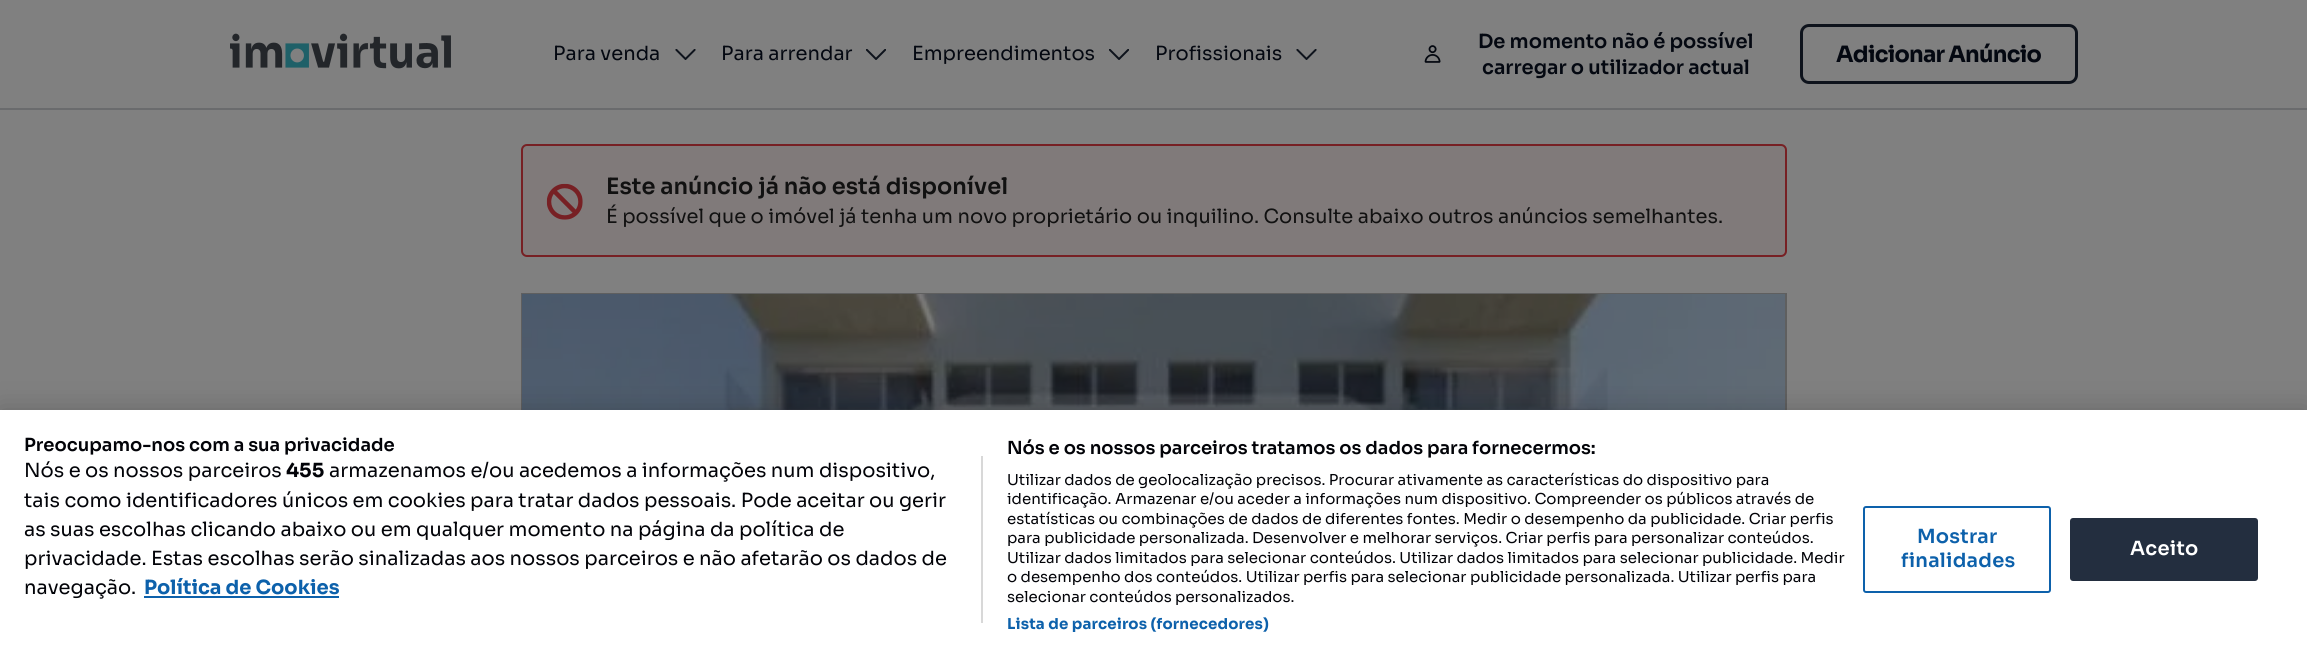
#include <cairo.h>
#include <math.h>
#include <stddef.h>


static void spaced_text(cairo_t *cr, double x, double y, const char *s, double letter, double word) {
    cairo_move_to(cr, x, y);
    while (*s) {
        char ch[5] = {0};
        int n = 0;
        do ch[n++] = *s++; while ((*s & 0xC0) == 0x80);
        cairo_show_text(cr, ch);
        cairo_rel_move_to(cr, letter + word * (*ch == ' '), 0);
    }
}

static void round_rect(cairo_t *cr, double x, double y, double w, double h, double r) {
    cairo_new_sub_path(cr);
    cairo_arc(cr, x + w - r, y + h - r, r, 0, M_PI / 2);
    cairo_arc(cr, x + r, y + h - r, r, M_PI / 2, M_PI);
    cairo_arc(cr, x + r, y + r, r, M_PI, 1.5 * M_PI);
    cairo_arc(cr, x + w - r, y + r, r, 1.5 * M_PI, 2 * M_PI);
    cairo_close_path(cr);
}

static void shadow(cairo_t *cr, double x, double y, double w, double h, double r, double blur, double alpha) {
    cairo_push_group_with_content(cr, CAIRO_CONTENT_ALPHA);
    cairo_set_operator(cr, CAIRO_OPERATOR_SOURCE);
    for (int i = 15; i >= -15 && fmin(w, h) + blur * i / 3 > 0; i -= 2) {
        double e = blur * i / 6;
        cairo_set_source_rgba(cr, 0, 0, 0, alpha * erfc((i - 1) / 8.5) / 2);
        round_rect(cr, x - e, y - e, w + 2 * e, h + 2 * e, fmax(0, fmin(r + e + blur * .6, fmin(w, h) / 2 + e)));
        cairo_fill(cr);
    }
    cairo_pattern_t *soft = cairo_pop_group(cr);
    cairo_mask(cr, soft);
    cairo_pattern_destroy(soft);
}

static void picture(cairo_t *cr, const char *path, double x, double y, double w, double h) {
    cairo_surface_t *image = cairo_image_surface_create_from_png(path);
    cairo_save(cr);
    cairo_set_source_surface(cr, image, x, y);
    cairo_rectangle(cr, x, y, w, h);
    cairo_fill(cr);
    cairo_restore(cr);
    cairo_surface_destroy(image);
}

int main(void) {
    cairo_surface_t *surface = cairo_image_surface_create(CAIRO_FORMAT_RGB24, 2307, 669);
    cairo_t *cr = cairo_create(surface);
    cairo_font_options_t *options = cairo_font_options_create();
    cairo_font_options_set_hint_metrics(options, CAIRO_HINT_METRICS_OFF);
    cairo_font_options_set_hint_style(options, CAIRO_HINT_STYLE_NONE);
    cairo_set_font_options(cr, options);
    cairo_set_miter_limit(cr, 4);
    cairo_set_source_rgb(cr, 0.502, 0.502, 0.502);
    cairo_paint(cr);
    cairo_set_source_rgb(cr, 0.416, 0.42, 0.427);
    cairo_rectangle(cr, 0, 108, 2307, 2);
    cairo_fill(cr);
    picture(cr, "img1.png", 230, 33, 221, 36);
    cairo_select_font_face(cr, "Sora", CAIRO_FONT_SLANT_NORMAL, CAIRO_FONT_WEIGHT_NORMAL);
    cairo_set_font_size(cr, 19.5);
    cairo_set_source_rgb(cr, 0.016, 0.035, 0.067);
    cairo_move_to(cr, 553, 60);
    cairo_show_text(cr, "Para venda");
    picture(cr, "img2.png", 675, 49, 21, 11);
    cairo_move_to(cr, 721, 60);
    cairo_show_text(cr, "Para arrendar");
    picture(cr, "img3.png", 866, 49, 20, 11);
    cairo_move_to(cr, 912, 60);
    cairo_show_text(cr, "Empreendimentos");
    picture(cr, "img3.png", 1109, 49, 20, 11);
    cairo_move_to(cr, 1155, 60);
    cairo_show_text(cr, "Profissionais");
    picture(cr, "img2.png", 1296, 49, 21, 11);
    picture(cr, "img4.png", 1424, 45, 17, 18);
    cairo_select_font_face(cr, "Sora SemiBold", CAIRO_FONT_SLANT_NORMAL, CAIRO_FONT_WEIGHT_NORMAL);
    cairo_move_to(cr, 1478, 48);
    cairo_show_text(cr, "De momento não é possível");
    cairo_move_to(cr, 1482, 74);
    cairo_show_text(cr, "carregar o utilizador actual");
    round_rect(cr, 1801.5, 25.5, 275, 57, 7.5);
    cairo_set_source_rgb(cr, 0.055, 0.075, 0.11);
    cairo_set_line_width(cr, 3);
    cairo_stroke(cr);
    cairo_select_font_face(cr, "Sora", CAIRO_FONT_SLANT_NORMAL, CAIRO_FONT_WEIGHT_BOLD);
    cairo_set_font_size(cr, 22.5);
    cairo_set_source_rgb(cr, 0.016, 0.035, 0.067);
    spaced_text(cr, 1836, 62, "Adicionar Anúncio", -0.75, 0);
    cairo_set_source_rgb(cr, 0.502, 0.478, 0.478);
    round_rect(cr, 522, 145, 1264, 111, 5);
    cairo_fill_preserve(cr);
    cairo_set_source_rgb(cr, 0.467, 0.125, 0.141);
    cairo_set_line_width(cr, 2);
    cairo_stroke(cr);
    picture(cr, "img5.png", 546, 183, 37, 37);
    cairo_select_font_face(cr, "Sora SemiBold", CAIRO_FONT_SLANT_NORMAL, CAIRO_FONT_WEIGHT_NORMAL);
    cairo_set_source_rgb(cr, 0.067, 0.067, 0.067);
    cairo_move_to(cr, 606, 194);
    cairo_show_text(cr, "Este anúncio já não está disponível");
    cairo_select_font_face(cr, "Sora", CAIRO_FONT_SLANT_NORMAL, CAIRO_FONT_WEIGHT_NORMAL);
    cairo_set_font_size(cr, 19.5);
    cairo_move_to(cr, 606, 223);
    cairo_show_text(cr, "É possível que o imóvel já tenha um novo proprietário ou inquilino. Consulte abaixo outros anúncios semelhantes.");
    cairo_rectangle(cr, 522, 294, 1264, 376);
    cairo_set_source_rgb(cr, 0.373, 0.373, 0.373);
    cairo_stroke(cr);
    picture(cr, "img6.png", 522, 294, 1263, 116);
    cairo_set_source_rgb(cr, 0, 0, 0);
    shadow(cr, 0, 410, 2307, 259, 0, 13.5, 0.2);
    cairo_set_source_rgb(cr, 1, 1, 1);
    cairo_rectangle(cr, 0, 410, 2307, 259);
    cairo_fill(cr);
    cairo_select_font_face(cr, "Sora SemiBold", CAIRO_FONT_SLANT_NORMAL, CAIRO_FONT_WEIGHT_NORMAL);
    cairo_set_font_size(cr, 18);
    cairo_set_source_rgb(cr, 0.008, 0.012, 0.035);
    cairo_move_to(cr, 24, 451);
    cairo_show_text(cr, "Preocupamo-nos com a sua privacidade");
    cairo_move_to(cr, 1007, 454);
    cairo_show_text(cr, "Nós e os nossos parceiros tratamos os dados para fornecermos:");
    cairo_select_font_face(cr, "Sora", CAIRO_FONT_SLANT_NORMAL, CAIRO_FONT_WEIGHT_NORMAL);
    cairo_set_font_size(cr, 15);
    cairo_move_to(cr, 1007, 485);
    cairo_show_text(cr, "Utilizar dados de geolocalização precisos. Procurar ativamente as características do dispositivo para");
    cairo_move_to(cr, 1007, 504);
    cairo_show_text(cr, "identificação. Armazenar e/ou aceder a informações num dispositivo. Compreender os públicos através de");
    cairo_move_to(cr, 1007, 524);
    cairo_show_text(cr, "estatísticas ou combinações de dados de diferentes fontes. Medir o desempenho da publicidade. Criar perfis");
    cairo_move_to(cr, 1007, 543);
    cairo_show_text(cr, "para publicidade personalizada. Desenvolver e melhorar serviços. Criar perfis para personalizar conteúdos.");
    cairo_move_to(cr, 1007, 563);
    cairo_show_text(cr, "Utilizar dados limitados para selecionar conteúdos. Utilizar dados limitados para selecionar publicidade. Medir");
    cairo_move_to(cr, 1007, 582);
    cairo_show_text(cr, "o desempenho dos conteúdos. Utilizar perfis para selecionar publicidade personalizada. Utilizar perfis para");
    cairo_move_to(cr, 1007, 602);
    cairo_show_text(cr, "selecionar conteúdos personalizados.");
    cairo_select_font_face(cr, "Sora", CAIRO_FONT_SLANT_NORMAL, CAIRO_FONT_WEIGHT_BOLD);
    cairo_set_source_rgb(cr, 0.051, 0.38, 0.671);
    spaced_text(cr, 1007, 629, "Lista de parceiros (fornecedores)", 0.15, 0);
    cairo_set_source_rgb(cr, 0.847, 0.847, 0.847);
    cairo_rectangle(cr, 981, 456, 2, 167);
    cairo_fill(cr);
    cairo_select_font_face(cr, "Sora", CAIRO_FONT_SLANT_NORMAL, CAIRO_FONT_WEIGHT_NORMAL);
    cairo_set_font_size(cr, 19.5);
    cairo_set_source_rgb(cr, 0.008, 0.012, 0.035);
    cairo_move_to(cr, 24, 477);
    cairo_show_text(cr, "Nós e os nossos parceiros");
    cairo_select_font_face(cr, "Sora", CAIRO_FONT_SLANT_NORMAL, CAIRO_FONT_WEIGHT_BOLD);
    cairo_move_to(cr, 286, 477);
    cairo_show_text(cr, "455");
    cairo_select_font_face(cr, "Sora", CAIRO_FONT_SLANT_NORMAL, CAIRO_FONT_WEIGHT_NORMAL);
    cairo_move_to(cr, 329, 477);
    cairo_show_text(cr, "armazenamos e/ou acedemos a informações num dispositivo,");
    cairo_move_to(cr, 24, 507);
    cairo_show_text(cr, "tais como identificadores únicos em cookies para tratar dados pessoais. Pode aceitar ou gerir");
    cairo_move_to(cr, 24, 536);
    cairo_show_text(cr, "as suas escolhas clicando abaixo ou em qualquer momento na página da política de");
    cairo_move_to(cr, 24, 565);
    cairo_show_text(cr, "privacidade. Estas escolhas serão sinalizadas aos nossos parceiros e não afetarão os dados de");
    cairo_move_to(cr, 24, 594);
    cairo_show_text(cr, "navegação.");
    cairo_select_font_face(cr, "Sora", CAIRO_FONT_SLANT_NORMAL, CAIRO_FONT_WEIGHT_BOLD);
    cairo_set_source_rgb(cr, 0.051, 0.38, 0.671);
    cairo_move_to(cr, 144, 594);
    cairo_show_text(cr, "Política de Cookies");
    cairo_rectangle(cr, 144, 596, 195, 2);
    cairo_fill(cr);
    round_rect(cr, 1864, 507, 186, 85, 2);
    cairo_stroke(cr);
    cairo_select_font_face(cr, "Sora SemiBold", CAIRO_FONT_SLANT_NORMAL, CAIRO_FONT_WEIGHT_NORMAL);
    spaced_text(cr, 1917, 543, "Mostrar", 0.25, 0);
    spaced_text(cr, 1901, 567, "finalidades", 0.25, 0);
    cairo_set_source_rgb(cr, 0.137, 0.18, 0.247);
    round_rect(cr, 2071, 519, 186, 61, 2);
    cairo_fill_preserve(cr);
    cairo_stroke(cr);
    cairo_set_source_rgb(cr, 1, 1, 1);
    spaced_text(cr, 2130, 555, "Aceito", 0.25, 0);
    cairo_surface_write_to_png(surface, "page.png");
    cairo_font_options_destroy(options);
    cairo_destroy(cr);
    cairo_surface_destroy(surface);
    return 0;
}
